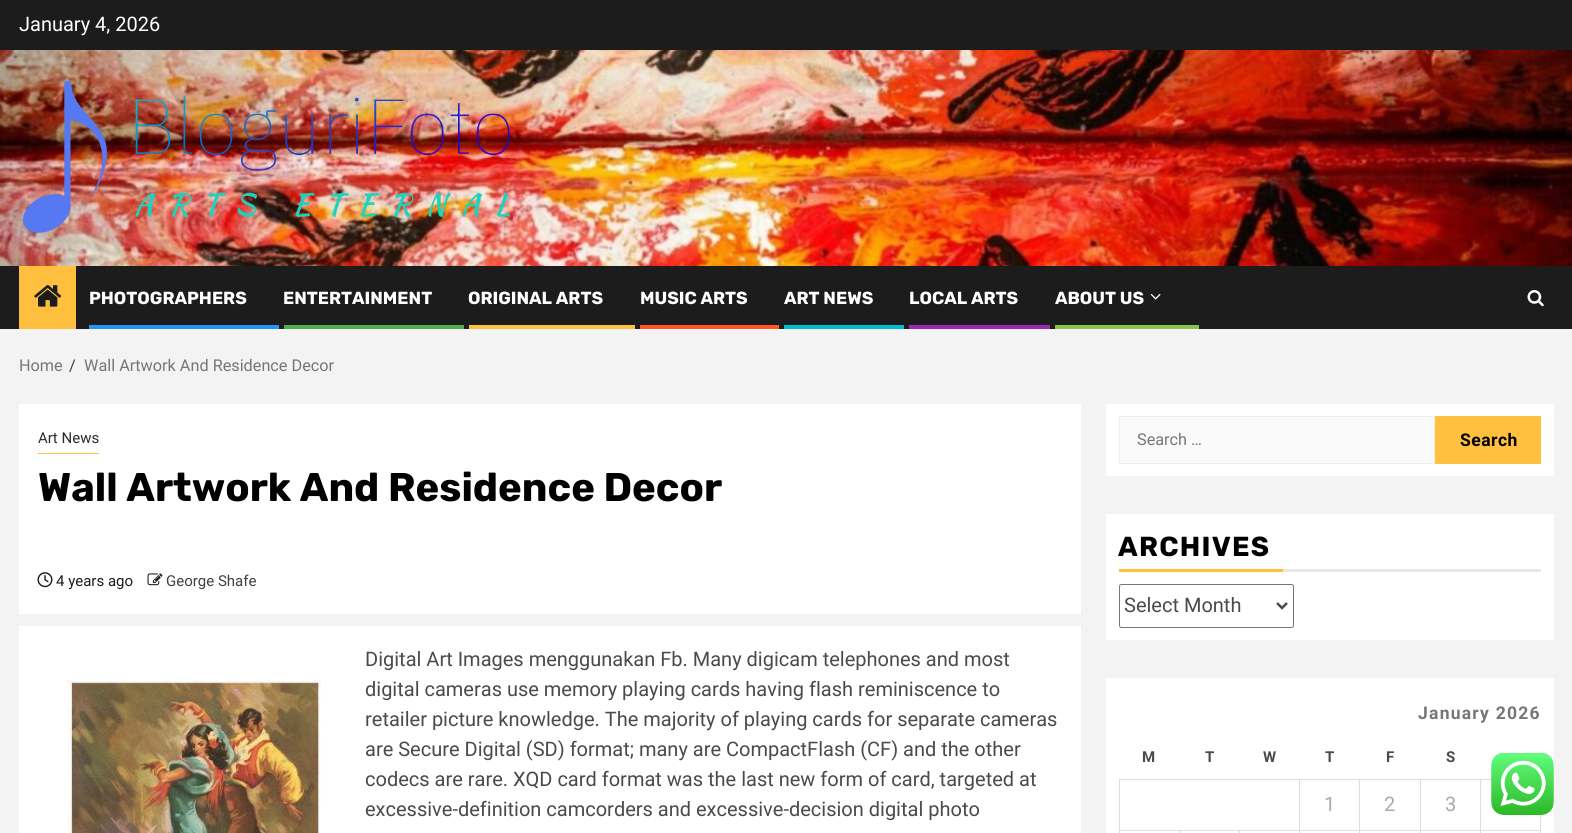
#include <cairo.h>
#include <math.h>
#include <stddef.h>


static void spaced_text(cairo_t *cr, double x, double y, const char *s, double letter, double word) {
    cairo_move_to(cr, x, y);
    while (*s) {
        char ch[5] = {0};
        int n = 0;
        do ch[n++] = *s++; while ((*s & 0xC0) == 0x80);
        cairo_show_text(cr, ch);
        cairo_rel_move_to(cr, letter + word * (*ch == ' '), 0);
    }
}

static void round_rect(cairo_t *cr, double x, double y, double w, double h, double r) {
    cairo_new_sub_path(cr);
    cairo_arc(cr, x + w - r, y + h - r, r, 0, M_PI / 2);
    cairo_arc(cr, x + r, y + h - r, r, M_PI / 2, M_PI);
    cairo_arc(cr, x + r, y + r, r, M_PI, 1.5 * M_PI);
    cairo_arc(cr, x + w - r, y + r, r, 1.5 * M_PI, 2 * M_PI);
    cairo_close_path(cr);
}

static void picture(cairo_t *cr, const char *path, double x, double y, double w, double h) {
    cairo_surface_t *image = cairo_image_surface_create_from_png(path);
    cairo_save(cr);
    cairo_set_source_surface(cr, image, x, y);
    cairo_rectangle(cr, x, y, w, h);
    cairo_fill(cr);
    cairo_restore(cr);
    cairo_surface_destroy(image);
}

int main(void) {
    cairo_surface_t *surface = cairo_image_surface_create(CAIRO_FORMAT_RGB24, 1572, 833);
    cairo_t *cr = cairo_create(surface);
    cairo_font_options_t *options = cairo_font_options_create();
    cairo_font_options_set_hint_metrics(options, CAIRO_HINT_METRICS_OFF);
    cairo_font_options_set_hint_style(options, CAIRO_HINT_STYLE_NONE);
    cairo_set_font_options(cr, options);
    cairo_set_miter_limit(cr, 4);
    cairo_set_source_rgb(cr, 0.953, 0.953, 0.953);
    cairo_paint(cr);
    cairo_set_source_rgb(cr, 0.11, 0.11, 0.11);
    cairo_rectangle(cr, 0, 0, 1572, 50);
    cairo_fill(cr);
    cairo_select_font_face(cr, "Roboto", CAIRO_FONT_SLANT_NORMAL, CAIRO_FONT_WEIGHT_NORMAL);
    cairo_set_font_size(cr, 20);
    cairo_set_source_rgb(cr, 1, 1, 1);
    cairo_move_to(cr, 19, 31);
    cairo_show_text(cr, "January 4, 2026");
    picture(cr, "img1.png", 0, 50, 1572, 216);
    picture(cr, "img2.png", 22, 81, 488, 152);
    cairo_set_source_rgb(cr, 0.11, 0.11, 0.11);
    cairo_rectangle(cr, 0, 266, 1572, 63);
    cairo_fill(cr);
    cairo_set_source_rgb(cr, 1, 0.749, 0.247);
    cairo_rectangle(cr, 19, 266, 57, 63);
    cairo_fill(cr);
    picture(cr, "img3.png", 34, 285, 28, 22);
    cairo_select_font_face(cr, "Rubik", CAIRO_FONT_SLANT_NORMAL, CAIRO_FONT_WEIGHT_BOLD);
    cairo_set_font_size(cr, 17.5);
    cairo_set_source_rgb(cr, 1, 1, 1);
    cairo_move_to(cr, 89, 304);
    cairo_show_text(cr, "PHOTOGRAPHERS");
    cairo_set_source_rgb(cr, 0.129, 0.588, 0.953);
    cairo_rectangle(cr, 89, 325, 190, 4);
    cairo_fill(cr);
    cairo_set_source_rgb(cr, 1, 1, 1);
    cairo_move_to(cr, 283, 304);
    cairo_show_text(cr, "ENTERTAINMENT");
    cairo_set_source_rgb(cr, 0.298, 0.686, 0.314);
    cairo_rectangle(cr, 284, 325, 180, 4);
    cairo_fill(cr);
    cairo_set_source_rgb(cr, 1, 1, 1);
    cairo_move_to(cr, 468, 304);
    cairo_show_text(cr, "ORIGINAL ARTS");
    cairo_set_source_rgb(cr, 1, 0.749, 0.247);
    cairo_rectangle(cr, 469, 325, 166, 4);
    cairo_fill(cr);
    cairo_set_source_rgb(cr, 1, 1, 1);
    cairo_move_to(cr, 640, 304);
    cairo_show_text(cr, "MUSIC ARTS");
    cairo_set_source_rgb(cr, 1, 0.341, 0.133);
    cairo_rectangle(cr, 640, 325, 139, 4);
    cairo_fill(cr);
    cairo_set_source_rgb(cr, 1, 1, 1);
    cairo_move_to(cr, 784, 304);
    cairo_show_text(cr, "ART NEWS");
    cairo_set_source_rgb(cr, 0, 0.737, 0.831);
    cairo_rectangle(cr, 784, 325, 120, 4);
    cairo_fill(cr);
    cairo_set_source_rgb(cr, 1, 1, 1);
    cairo_move_to(cr, 909, 304);
    cairo_show_text(cr, "LOCAL ARTS");
    cairo_set_source_rgb(cr, 0.612, 0.153, 0.69);
    cairo_rectangle(cr, 909, 325, 141, 4);
    cairo_fill(cr);
    cairo_set_source_rgb(cr, 1, 1, 1);
    cairo_move_to(cr, 1055, 304);
    cairo_show_text(cr, "ABOUT US");
    picture(cr, "img4.png", 1150, 293, 11, 7);
    cairo_set_source_rgb(cr, 0.545, 0.765, 0.29);
    cairo_rectangle(cr, 1055, 325, 144, 4);
    cairo_fill(cr);
    picture(cr, "img5.png", 1527, 290, 17, 17);
    cairo_select_font_face(cr, "Roboto", CAIRO_FONT_SLANT_NORMAL, CAIRO_FONT_WEIGHT_NORMAL);
    cairo_set_font_size(cr, 16.25);
    cairo_set_source_rgb(cr, 0.463, 0.463, 0.463);
    cairo_move_to(cr, 19, 371);
    cairo_show_text(cr, "Home");
    cairo_set_source_rgb(cr, 0.224, 0.243, 0.275);
    cairo_move_to(cr, 69, 371);
    cairo_show_text(cr, "/");
    cairo_set_source_rgb(cr, 0.463, 0.463, 0.463);
    cairo_move_to(cr, 84, 371);
    cairo_show_text(cr, "Wall Artwork And Residence Decor");
    cairo_set_source_rgb(cr, 1, 1, 1);
    cairo_rectangle(cr, 19, 404, 1062, 210);
    cairo_fill(cr);
    cairo_set_source_rgb(cr, 1, 0.749, 0.247);
    cairo_rectangle(cr, 38, 453, 61, 1);
    cairo_fill(cr);
    cairo_set_font_size(cr, 15);
    cairo_set_source_rgb(cr, 0.169, 0.169, 0.169);
    cairo_move_to(cr, 38, 443);
    cairo_show_text(cr, "Art News");
    cairo_select_font_face(cr, "Rubik", CAIRO_FONT_SLANT_NORMAL, CAIRO_FONT_WEIGHT_BOLD);
    cairo_set_font_size(cr, 40);
    cairo_set_source_rgb(cr, 0, 0, 0);
    cairo_move_to(cr, 38, 501);
    cairo_show_text(cr, "Wall Artwork And Residence Decor");
    picture(cr, "img6.png", 37, 572, 16, 16);
    cairo_select_font_face(cr, "Roboto", CAIRO_FONT_SLANT_NORMAL, CAIRO_FONT_WEIGHT_NORMAL);
    cairo_set_font_size(cr, 15);
    cairo_set_source_rgb(cr, 0.11, 0.11, 0.11);
    cairo_move_to(cr, 56, 586);
    cairo_show_text(cr, "4 years ago");
    picture(cr, "img7.png", 147, 573, 16, 13);
    cairo_set_source_rgb(cr, 0.251, 0.251, 0.251);
    cairo_move_to(cr, 166, 586);
    cairo_show_text(cr, "George Shafe");
    cairo_set_source_rgb(cr, 1, 1, 1);
    cairo_rectangle(cr, 19, 626, 1062, 207);
    cairo_fill(cr);
    cairo_set_font_size(cr, 20);
    cairo_set_source_rgb(cr, 0.29, 0.29, 0.29);
    cairo_move_to(cr, 365, 666);
    cairo_show_text(cr, "Digital Art Images menggunakan Fb. Many digicam telephones and most");
    picture(cr, "img8.png", 67, 679, 254, 154);
    cairo_move_to(cr, 365, 696);
    cairo_show_text(cr, "digital cameras use memory playing cards having flash reminiscence to");
    cairo_move_to(cr, 365, 726);
    cairo_show_text(cr, "retailer picture knowledge. The majority of playing cards for separate cameras");
    cairo_move_to(cr, 365, 756);
    cairo_show_text(cr, "are Secure Digital (SD) format; many are CompactFlash (CF) and the other");
    cairo_move_to(cr, 365, 786);
    cairo_show_text(cr, "codecs are rare. XQD card format was the last new form of card, targeted at");
    cairo_move_to(cr, 365, 816);
    cairo_show_text(cr, "excessive-definition camcorders and excessive-decision digital photo");
    cairo_set_source_rgb(cr, 1, 1, 1);
    cairo_rectangle(cr, 1106, 404, 448, 72);
    cairo_fill(cr);
    cairo_set_source_rgb(cr, 0.98, 0.98, 0.98);
    cairo_rectangle(cr, 1119.5, 416.5, 315, 47);
    cairo_fill_preserve(cr);
    cairo_set_source_rgb(cr, 0.933, 0.933, 0.933);
    cairo_set_line_width(cr, 1);
    cairo_stroke(cr);
    cairo_set_font_size(cr, 16.25);
    cairo_set_source_rgb(cr, 0.463, 0.463, 0.463);
    cairo_move_to(cr, 1137, 445);
    cairo_show_text(cr, "Search …");
    cairo_set_source_rgb(cr, 1, 0.749, 0.247);
    cairo_rectangle(cr, 1435, 416, 106, 48);
    cairo_fill(cr);
    cairo_select_font_face(cr, "Roboto", CAIRO_FONT_SLANT_NORMAL, CAIRO_FONT_WEIGHT_BOLD);
    cairo_set_font_size(cr, 17.5);
    cairo_set_source_rgb(cr, 0, 0, 0);
    spaced_text(cr, 1460, 446, "Search", 0.5, 0);
    cairo_set_source_rgb(cr, 1, 1, 1);
    cairo_rectangle(cr, 1106, 514, 448, 126);
    cairo_fill(cr);
    cairo_set_source_rgb(cr, 1, 0.749, 0.247);
    cairo_rectangle(cr, 1119, 569, 164, 3);
    cairo_fill(cr);
    cairo_select_font_face(cr, "Rubik", CAIRO_FONT_SLANT_NORMAL, CAIRO_FONT_WEIGHT_BOLD);
    cairo_set_font_size(cr, 27.5);
    cairo_set_source_rgb(cr, 0, 0, 0);
    spaced_text(cr, 1118, 556, "ARCHIVES", 1.25, 0);
    cairo_set_source_rgb(cr, 0.906, 0.906, 0.906);
    cairo_rectangle(cr, 1283, 569, 258, 3);
    cairo_fill(cr);
    round_rect(cr, 1119.5, 584.5, 174, 43, 2);
    cairo_set_source_rgb(cr, 0.463, 0.463, 0.463);
    cairo_stroke(cr);
    cairo_new_path(cr);
    cairo_move_to(cr, 1277, 603);
    cairo_line_to(cr, 1282, 608);
    cairo_line_to(cr, 1287, 603);
    cairo_set_source_rgb(cr, 0.29, 0.29, 0.29);
    cairo_set_line_width(cr, 2.5);
    cairo_stroke(cr);
    cairo_select_font_face(cr, "Roboto", CAIRO_FONT_SLANT_NORMAL, CAIRO_FONT_WEIGHT_NORMAL);
    cairo_set_font_size(cr, 20);
    cairo_move_to(cr, 1124, 612);
    cairo_show_text(cr, "Select Month");
    cairo_set_source_rgb(cr, 1, 1, 1);
    cairo_rectangle(cr, 1106, 678, 448, 155);
    cairo_fill(cr);
    cairo_select_font_face(cr, "Roboto", CAIRO_FONT_SLANT_NORMAL, CAIRO_FONT_WEIGHT_BOLD);
    cairo_set_font_size(cr, 17.5);
    cairo_set_source_rgb(cr, 0.463, 0.463, 0.463);
    spaced_text(cr, 1418, 719, "January 2026", 1.25, 0);
    cairo_set_font_size(cr, 15);
    cairo_set_source_rgb(cr, 0.29, 0.29, 0.29);
    cairo_move_to(cr, 1142, 762);
    cairo_show_text(cr, "M");
    cairo_move_to(cr, 1205, 762);
    cairo_show_text(cr, "T");
    cairo_move_to(cr, 1263, 762);
    cairo_show_text(cr, "W");
    cairo_move_to(cr, 1325, 762);
    cairo_show_text(cr, "T");
    cairo_move_to(cr, 1386, 762);
    cairo_show_text(cr, "F");
    cairo_move_to(cr, 1446, 762);
    cairo_show_text(cr, "S");
    cairo_set_source_rgb(cr, 0.867, 0.867, 0.867);
    cairo_rectangle(cr, 1480, 779, 12, 1);
    cairo_fill(cr);
    cairo_rectangle(cr, 1480, 830, 61, 1);
    cairo_fill(cr);
    cairo_rectangle(cr, 1480, 830, 1, 3);
    cairo_fill(cr);
    cairo_rectangle(cr, 1420, 830, 61, 1);
    cairo_fill(cr);
    cairo_rectangle(cr, 1480, 779, 1, 52);
    cairo_fill(cr);
    cairo_rectangle(cr, 1420, 779, 61, 1);
    cairo_fill(cr);
    cairo_rectangle(cr, 1420, 830, 1, 3);
    cairo_fill(cr);
    cairo_rectangle(cr, 1359, 830, 62, 1);
    cairo_fill(cr);
    cairo_rectangle(cr, 1420, 779, 1, 52);
    cairo_fill(cr);
    cairo_rectangle(cr, 1359, 779, 62, 1);
    cairo_fill(cr);
    cairo_rectangle(cr, 1359, 830, 1, 3);
    cairo_fill(cr);
    cairo_rectangle(cr, 1299, 830, 61, 1);
    cairo_fill(cr);
    cairo_rectangle(cr, 1359, 779, 1, 52);
    cairo_fill(cr);
    cairo_rectangle(cr, 1299, 779, 61, 1);
    cairo_fill(cr);
    cairo_rectangle(cr, 1299, 830, 1, 3);
    cairo_fill(cr);
    cairo_rectangle(cr, 1239, 830, 61, 1);
    cairo_fill(cr);
    cairo_rectangle(cr, 1299, 779, 1, 52);
    cairo_fill(cr);
    cairo_rectangle(cr, 1119, 779, 181, 1);
    cairo_fill(cr);
    cairo_rectangle(cr, 1239, 830, 1, 3);
    cairo_fill(cr);
    cairo_rectangle(cr, 1179, 830, 61, 1);
    cairo_fill(cr);
    cairo_rectangle(cr, 1179, 830, 1, 3);
    cairo_fill(cr);
    cairo_rectangle(cr, 1119, 830, 61, 1);
    cairo_fill(cr);
    cairo_rectangle(cr, 1119, 830, 1, 3);
    cairo_fill(cr);
    cairo_rectangle(cr, 1119, 779, 1, 52);
    cairo_fill(cr);
    cairo_select_font_face(cr, "Roboto", CAIRO_FONT_SLANT_NORMAL, CAIRO_FONT_WEIGHT_NORMAL);
    cairo_set_font_size(cr, 20);
    cairo_set_source_rgb(cr, 0.667, 0.667, 0.667);
    cairo_move_to(cr, 1324, 811);
    cairo_show_text(cr, "1");
    cairo_move_to(cr, 1384, 811);
    cairo_show_text(cr, "2");
    cairo_move_to(cr, 1445, 811);
    cairo_show_text(cr, "3");
    cairo_set_source_rgb(cr, 0.867, 0.867, 0.867);
    cairo_rectangle(cr, 1540, 814, 1, 19);
    cairo_fill(cr);
    picture(cr, "img9.png", 1491, 753, 63, 62);
    cairo_surface_write_to_png(surface, "page.png");
    cairo_font_options_destroy(options);
    cairo_destroy(cr);
    cairo_surface_destroy(surface);
    return 0;
}
